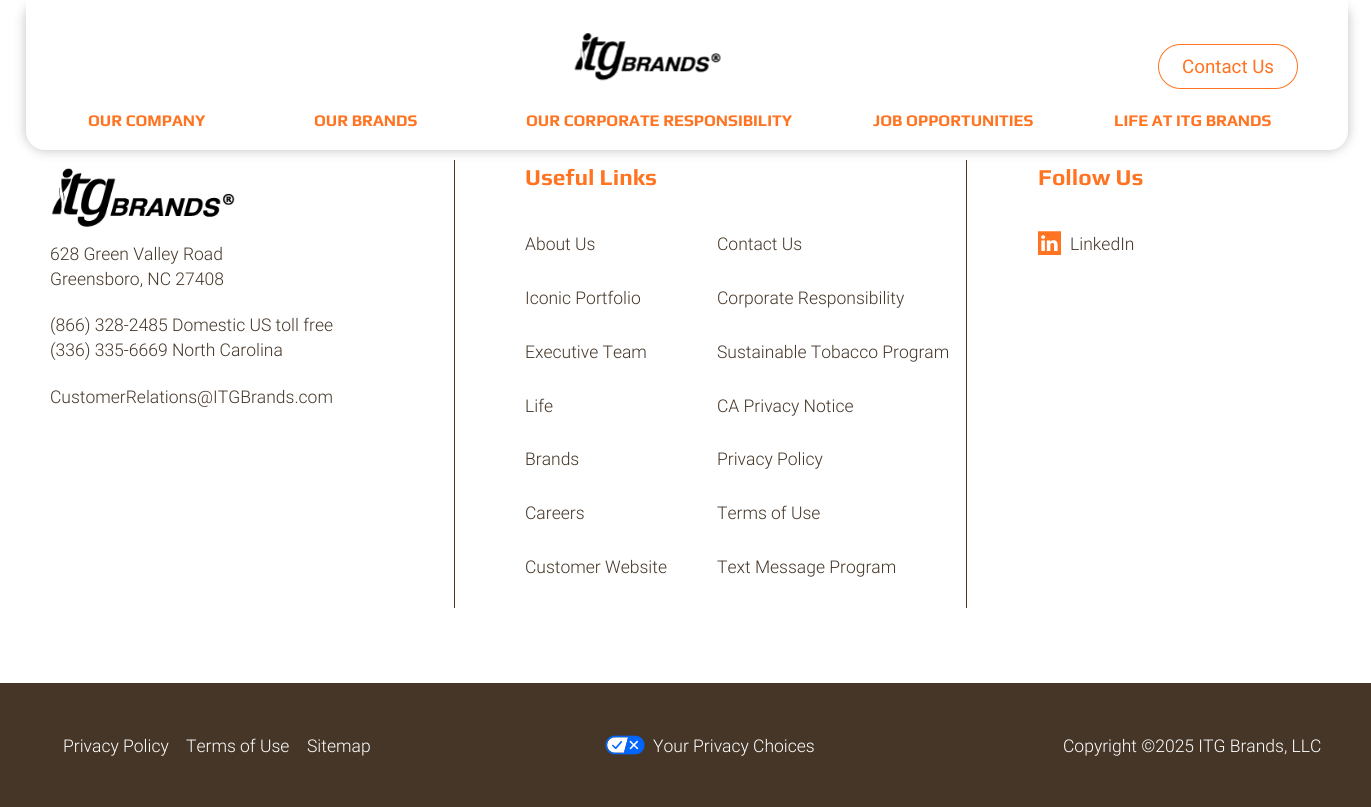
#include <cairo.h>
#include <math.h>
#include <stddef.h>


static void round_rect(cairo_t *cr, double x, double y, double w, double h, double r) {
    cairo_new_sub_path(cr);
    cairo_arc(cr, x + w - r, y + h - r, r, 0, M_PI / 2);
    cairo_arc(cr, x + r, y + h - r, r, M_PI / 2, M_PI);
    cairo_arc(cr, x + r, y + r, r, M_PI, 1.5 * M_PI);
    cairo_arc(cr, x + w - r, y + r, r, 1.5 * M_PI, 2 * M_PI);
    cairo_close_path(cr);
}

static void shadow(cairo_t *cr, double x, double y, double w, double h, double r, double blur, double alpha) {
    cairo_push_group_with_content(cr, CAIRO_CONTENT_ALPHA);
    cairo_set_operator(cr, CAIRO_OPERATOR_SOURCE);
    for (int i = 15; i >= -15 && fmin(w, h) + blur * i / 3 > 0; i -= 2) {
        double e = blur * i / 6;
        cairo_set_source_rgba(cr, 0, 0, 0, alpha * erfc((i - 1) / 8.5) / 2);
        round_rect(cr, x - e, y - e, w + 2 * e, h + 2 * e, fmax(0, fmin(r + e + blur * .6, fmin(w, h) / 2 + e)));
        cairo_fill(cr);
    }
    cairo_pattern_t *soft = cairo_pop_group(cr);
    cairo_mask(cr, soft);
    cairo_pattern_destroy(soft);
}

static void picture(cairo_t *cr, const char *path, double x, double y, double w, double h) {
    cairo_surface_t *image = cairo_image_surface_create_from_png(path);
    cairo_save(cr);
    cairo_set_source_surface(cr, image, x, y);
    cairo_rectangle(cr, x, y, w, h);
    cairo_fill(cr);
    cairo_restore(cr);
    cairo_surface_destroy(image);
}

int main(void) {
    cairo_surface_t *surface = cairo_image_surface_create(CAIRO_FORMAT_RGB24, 1371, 807);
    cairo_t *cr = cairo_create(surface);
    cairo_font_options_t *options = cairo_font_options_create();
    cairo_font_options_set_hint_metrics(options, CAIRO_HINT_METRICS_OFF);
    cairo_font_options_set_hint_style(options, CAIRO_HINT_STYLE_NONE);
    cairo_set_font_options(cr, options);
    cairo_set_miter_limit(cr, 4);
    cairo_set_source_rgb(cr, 1, 1, 1);
    cairo_paint(cr);
    cairo_set_source_rgb(cr, 0.271, 0.212, 0.157);
    cairo_rectangle(cr, 454, 160, 1, 448);
    cairo_fill(cr);
    cairo_rectangle(cr, 966, 160, 1, 448);
    cairo_fill(cr);
    picture(cr, "img3.png", 51, 168, 184, 59);
    cairo_set_source_rgb(cr, 0, 0, 0);
    shadow(cr, 26, 0, 1322, 150, 19, 6, 0.25);
    cairo_set_source_rgb(cr, 1, 1, 1);
    cairo_new_path(cr);
    cairo_move_to(cr, 26, 0);
    cairo_line_to(cr, 1348, 0);
    cairo_line_to(cr, 1348, 131);
    cairo_curve_to(cr, 1348, 141.5, 1339.5, 150, 1329, 150);
    cairo_line_to(cr, 45, 150);
    cairo_curve_to(cr, 34.5, 150, 26, 141.5, 26, 131);
    cairo_close_path(cr);
    cairo_fill(cr);
    picture(cr, "img1.png", 574, 33, 147, 48);
    round_rect(cr, 1158.5, 44.5, 139, 44, 22);
    cairo_set_source_rgb(cr, 1, 0.451, 0.129);
    cairo_set_line_width(cr, 1);
    cairo_stroke(cr);
    cairo_select_font_face(cr, "Roboto", CAIRO_FONT_SLANT_NORMAL, CAIRO_FONT_WEIGHT_NORMAL);
    cairo_set_font_size(cr, 18.75);
    cairo_move_to(cr, 1182, 73);
    cairo_show_text(cr, "Contact Us");
    cairo_select_font_face(cr, "Play", CAIRO_FONT_SLANT_NORMAL, CAIRO_FONT_WEIGHT_BOLD);
    cairo_set_font_size(cr, 16.25);
    cairo_move_to(cr, 88, 126);
    cairo_show_text(cr, "OUR COMPANY");
    cairo_move_to(cr, 314, 126);
    cairo_show_text(cr, "OUR BRANDS");
    cairo_move_to(cr, 526, 126);
    cairo_show_text(cr, "OUR CORPORATE RESPONSIBILITY");
    cairo_move_to(cr, 873, 126);
    cairo_show_text(cr, "JOB OPPORTUNITIES");
    cairo_move_to(cr, 1114, 126);
    cairo_show_text(cr, "LIFE AT ITG BRANDS");
    cairo_set_font_size(cr, 22.75);
    cairo_move_to(cr, 525, 185);
    cairo_show_text(cr, "Useful Links");
    cairo_select_font_face(cr, "Roboto Light", CAIRO_FONT_SLANT_NORMAL, CAIRO_FONT_WEIGHT_NORMAL);
    cairo_set_font_size(cr, 17.5);
    cairo_set_source_rgb(cr, 0.271, 0.212, 0.157);
    cairo_move_to(cr, 525, 250);
    cairo_show_text(cr, "About Us");
    cairo_move_to(cr, 525, 304);
    cairo_show_text(cr, "Iconic Portfolio");
    cairo_move_to(cr, 525, 358);
    cairo_show_text(cr, "Executive Team");
    cairo_move_to(cr, 525, 412);
    cairo_show_text(cr, "Life");
    cairo_move_to(cr, 525, 465);
    cairo_show_text(cr, "Brands");
    cairo_move_to(cr, 525, 519);
    cairo_show_text(cr, "Careers");
    cairo_move_to(cr, 525, 573);
    cairo_show_text(cr, "Customer Website");
    cairo_move_to(cr, 717, 250);
    cairo_show_text(cr, "Contact Us");
    cairo_move_to(cr, 717, 304);
    cairo_show_text(cr, "Corporate Responsibility");
    cairo_move_to(cr, 717, 358);
    cairo_show_text(cr, "Sustainable Tobacco Program");
    cairo_move_to(cr, 717, 412);
    cairo_show_text(cr, "CA Privacy Notice");
    cairo_move_to(cr, 717, 465);
    cairo_show_text(cr, "Privacy Policy");
    cairo_move_to(cr, 717, 519);
    cairo_show_text(cr, "Terms of Use");
    cairo_move_to(cr, 717, 573);
    cairo_show_text(cr, "Text Message Program");
    cairo_select_font_face(cr, "Play", CAIRO_FONT_SLANT_NORMAL, CAIRO_FONT_WEIGHT_BOLD);
    cairo_set_font_size(cr, 22.75);
    cairo_set_source_rgb(cr, 1, 0.451, 0.129);
    cairo_move_to(cr, 1038, 185);
    cairo_show_text(cr, "Follow Us");
    picture(cr, "img2.png", 1038, 231, 23, 24);
    cairo_select_font_face(cr, "Roboto Light", CAIRO_FONT_SLANT_NORMAL, CAIRO_FONT_WEIGHT_NORMAL);
    cairo_set_font_size(cr, 17.5);
    cairo_set_source_rgb(cr, 0.271, 0.212, 0.157);
    cairo_move_to(cr, 1070, 250);
    cairo_show_text(cr, "LinkedIn");
    cairo_move_to(cr, 50, 260);
    cairo_show_text(cr, "628 Green Valley Road");
    cairo_move_to(cr, 50, 285);
    cairo_show_text(cr, "Greensboro, NC 27408");
    cairo_move_to(cr, 50, 331);
    cairo_show_text(cr, "(866) 328-2485 Domestic US toll free");
    cairo_move_to(cr, 50, 356);
    cairo_show_text(cr, "(336) 335-6669 North Carolina");
    cairo_move_to(cr, 50, 403);
    cairo_show_text(cr, "CustomerRelations@ITGBrands.com");
    cairo_rectangle(cr, 0, 683, 1371, 124);
    cairo_fill(cr);
    cairo_set_source_rgb(cr, 1, 1, 1);
    cairo_move_to(cr, 63, 752);
    cairo_show_text(cr, "Privacy Policy");
    cairo_move_to(cr, 186, 752);
    cairo_show_text(cr, "Terms of Use");
    cairo_move_to(cr, 307, 752);
    cairo_show_text(cr, "Sitemap");
    picture(cr, "img4.png", 605, 735, 40, 20);
    cairo_move_to(cr, 653, 752);
    cairo_show_text(cr, "Your Privacy Choices");
    cairo_move_to(cr, 1063, 752);
    cairo_show_text(cr, "Copyright ©2025 ITG Brands, LLC");
    cairo_surface_write_to_png(surface, "page.png");
    cairo_font_options_destroy(options);
    cairo_destroy(cr);
    cairo_surface_destroy(surface);
    return 0;
}
